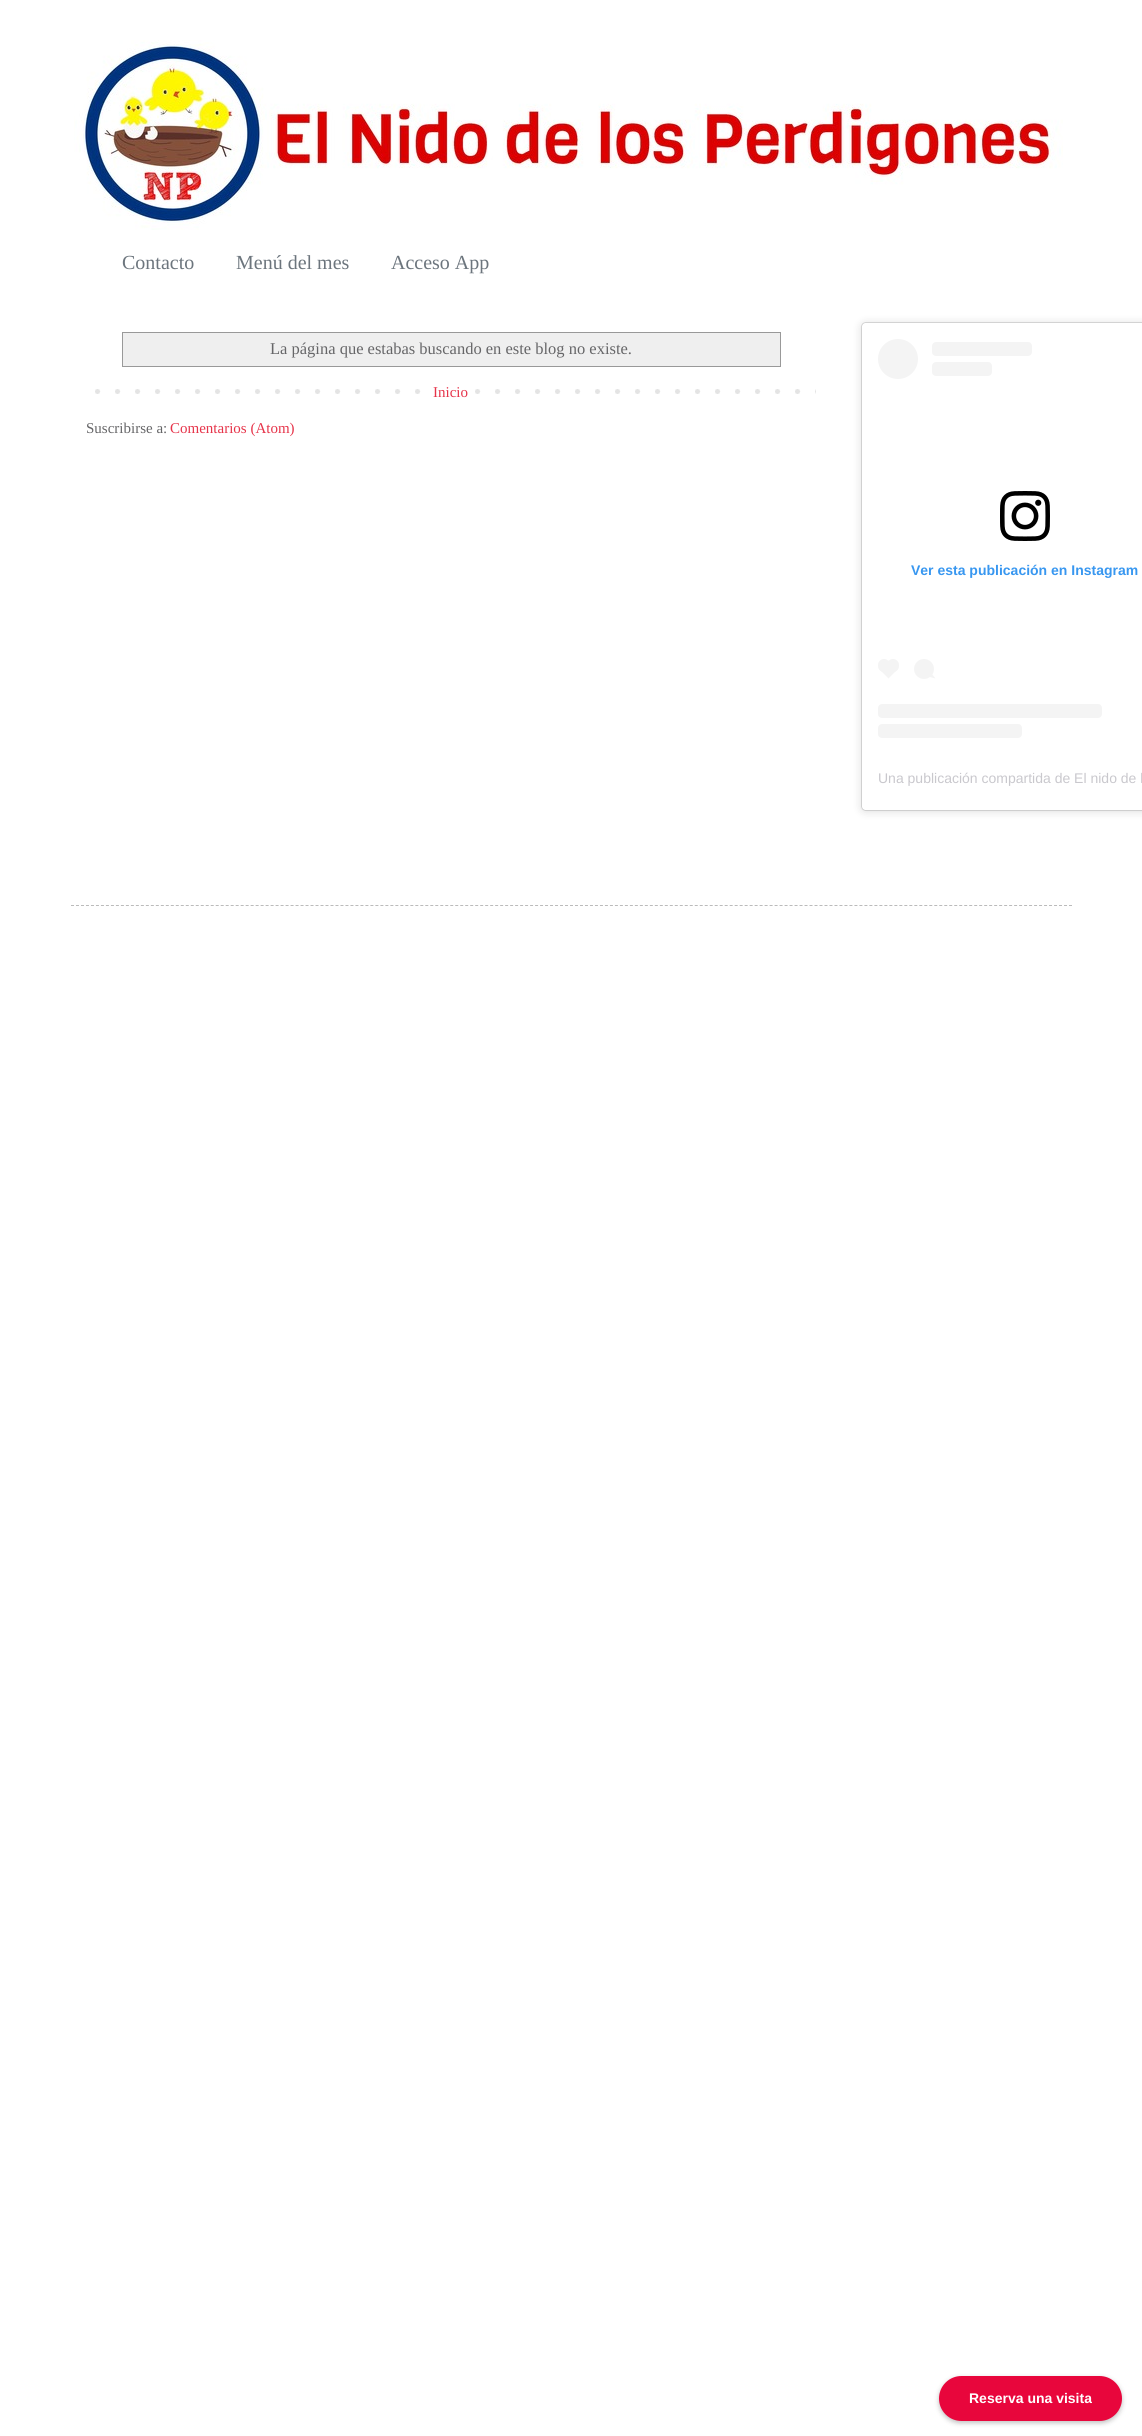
#include <cairo.h>
#include <math.h>
#include <stddef.h>


static void round_rect(cairo_t *cr, double x, double y, double w, double h, double r) {
    cairo_new_sub_path(cr);
    cairo_arc(cr, x + w - r, y + h - r, r, 0, M_PI / 2);
    cairo_arc(cr, x + r, y + h - r, r, M_PI / 2, M_PI);
    cairo_arc(cr, x + r, y + r, r, M_PI, 1.5 * M_PI);
    cairo_arc(cr, x + w - r, y + r, r, 1.5 * M_PI, 2 * M_PI);
    cairo_close_path(cr);
}

static void shadow(cairo_t *cr, double x, double y, double w, double h, double r, double blur, double alpha) {
    cairo_push_group_with_content(cr, CAIRO_CONTENT_ALPHA);
    cairo_set_operator(cr, CAIRO_OPERATOR_SOURCE);
    for (int i = 15; i >= -15 && fmin(w, h) + blur * i / 3 > 0; i -= 2) {
        double e = blur * i / 6;
        cairo_set_source_rgba(cr, 0, 0, 0, alpha * erfc((i - 1) / 8.5) / 2);
        round_rect(cr, x - e, y - e, w + 2 * e, h + 2 * e, fmax(0, fmin(r + e + blur * .6, fmin(w, h) / 2 + e)));
        cairo_fill(cr);
    }
    cairo_pattern_t *soft = cairo_pop_group(cr);
    cairo_mask(cr, soft);
    cairo_pattern_destroy(soft);
}

static void picture(cairo_t *cr, const char *path, double x, double y, double w, double h) {
    cairo_surface_t *image = cairo_image_surface_create_from_png(path);
    cairo_save(cr);
    cairo_set_source_surface(cr, image, x, y);
    cairo_rectangle(cr, x, y, w, h);
    cairo_fill(cr);
    cairo_restore(cr);
    cairo_surface_destroy(image);
}

int main(void) {
    cairo_surface_t *surface = cairo_image_surface_create(CAIRO_FORMAT_RGB24, 1142, 2436);
    cairo_t *cr = cairo_create(surface);
    cairo_font_options_t *options = cairo_font_options_create();
    cairo_font_options_set_hint_metrics(options, CAIRO_HINT_METRICS_OFF);
    cairo_font_options_set_hint_style(options, CAIRO_HINT_STYLE_NONE);
    cairo_set_font_options(cr, options);
    cairo_set_miter_limit(cr, 4);
    cairo_set_source_rgb(cr, 1, 1, 1);
    cairo_paint(cr);
    picture(cr, "img1.png", 74, 40, 989, 190);
    cairo_select_font_face(cr, "Liberation Serif", CAIRO_FONT_SLANT_NORMAL, CAIRO_FONT_WEIGHT_NORMAL);
    cairo_set_font_size(cr, 20);
    cairo_set_source_rgb(cr, 0.424, 0.459, 0.49);
    cairo_move_to(cr, 122, 269);
    cairo_show_text(cr, "Contacto");
    cairo_move_to(cr, 236, 269);
    cairo_show_text(cr, "Menú del mes");
    cairo_move_to(cr, 391, 269);
    cairo_show_text(cr, "Acceso App");
    cairo_rectangle(cr, 122.5, 332.5, 658, 34);
    cairo_set_source_rgb(cr, 0.6, 0.6, 0.6);
    cairo_set_line_width(cr, 1);
    cairo_stroke(cr);
    cairo_set_source_rgb(cr, 0.937, 0.937, 0.937);
    cairo_rectangle(cr, 123, 333, 657, 33);
    cairo_fill(cr);
    cairo_set_font_size(cr, 16.5);
    cairo_set_source_rgb(cr, 0.4, 0.4, 0.408);
    cairo_move_to(cr, 270, 354);
    cairo_show_text(cr, "La página que estabas buscando en este blog no existe.");
    picture(cr, "img2.png", 95, 389, 721, 5);
    cairo_set_source_rgb(cr, 1, 1, 1);
    cairo_rectangle(cr, 435, 389, 26, 5);
    cairo_fill(cr);
    cairo_set_font_size(cr, 15);
    cairo_set_source_rgb(cr, 0.902, 0.204, 0.29);
    cairo_move_to(cr, 433, 397);
    cairo_show_text(cr, "Inicio");
    cairo_set_source_rgb(cr, 0.4, 0.4, 0.408);
    cairo_move_to(cr, 86, 433);
    cairo_show_text(cr, "Suscribirse a:");
    cairo_set_source_rgb(cr, 0.902, 0.204, 0.29);
    cairo_move_to(cr, 170, 433);
    cairo_show_text(cr, "Comentarios (Atom)");
    cairo_set_source_rgb(cr, 0, 0, 0);
    shadow(cr, 862, 324, 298, 487, 3, 5, 0.15);
    shadow(cr, 862, 323, 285, 487, 3, 0.5, 0.5);
    cairo_set_source_rgb(cr, 1, 1, 1);
    round_rect(cr, 862, 323, 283, 487, 3);
    cairo_fill(cr);
    cairo_set_source_rgb(cr, 0.957, 0.957, 0.957);
    cairo_arc(cr, 898, 359, 20, 0, 2 * M_PI);
    cairo_fill(cr);
    round_rect(cr, 932, 342, 100, 14, 4);
    cairo_fill(cr);
    round_rect(cr, 932, 362, 60, 14, 4);
    cairo_fill(cr);
    picture(cr, "img3.png", 1000, 491, 50, 50);
    cairo_select_font_face(cr, "Liberation Sans", CAIRO_FONT_SLANT_NORMAL, CAIRO_FONT_WEIGHT_BOLD);
    cairo_set_font_size(cr, 14);
    cairo_set_source_rgb(cr, 0.22, 0.592, 0.941);
    cairo_move_to(cr, 911, 575);
    cairo_show_text(cr, "Ver esta publicación en Instagram");
    cairo_set_source_rgb(cr, 0.957, 0.957, 0.957);
    round_rect(cr, 878, 659, 12, 13, 6);
    cairo_fill(cr);
    cairo_new_path(cr);
    cairo_move_to(cr, 879.5, 669.5);
    cairo_line_to(cr, 888.5, 660.5);
    cairo_line_to(cr, 897.5, 669.5);
    cairo_line_to(cr, 888.5, 678.5);
    cairo_close_path(cr);
    cairo_fill(cr);
    round_rect(cr, 887, 659, 12, 13, 6);
    cairo_fill(cr);
    cairo_arc(cr, 924, 669, 10, 0, 2 * M_PI);
    cairo_fill(cr);
    cairo_new_path(cr);
    cairo_move_to(cr, 929.5, 677);
    cairo_line_to(cr, 931.5, 673.5);
    cairo_line_to(cr, 935.5, 678.5);
    cairo_close_path(cr);
    cairo_fill(cr);
    round_rect(cr, 878, 704, 224, 14, 4);
    cairo_fill(cr);
    round_rect(cr, 878, 724, 144, 14, 4);
    cairo_fill(cr);
    cairo_select_font_face(cr, "Liberation Sans", CAIRO_FONT_SLANT_NORMAL, CAIRO_FONT_WEIGHT_NORMAL);
    cairo_set_source_rgb(cr, 0.788, 0.784, 0.804);
    cairo_move_to(cr, 878, 783);
    cairo_show_text(cr, "Una publicación compartida de El nido de l");
    cairo_new_path(cr);
    cairo_move_to(cr, 71, 905.5);
    cairo_line_to(cr, 1072, 905.5);
    cairo_set_source_rgb(cr, 0.733, 0.733, 0.733);
    cairo_set_dash(cr, (double[]){3, 1.99}, 2, 0);
    cairo_stroke(cr);
    cairo_set_source_rgb(cr, 0, 0, 0);
    shadow(cr, 939, 2378, 183, 45, 22.5, 2.5, 0.25);
    cairo_set_source_rgb(cr, 0.91, 0.024, 0.235);
    round_rect(cr, 939, 2376, 183, 45, 22.5);
    cairo_fill(cr);
    cairo_select_font_face(cr, "Liberation Sans", CAIRO_FONT_SLANT_NORMAL, CAIRO_FONT_WEIGHT_BOLD);
    cairo_set_source_rgb(cr, 1, 1, 1);
    cairo_move_to(cr, 969, 2403);
    cairo_show_text(cr, "Reserva una visita");
    cairo_surface_write_to_png(surface, "page.png");
    cairo_font_options_destroy(options);
    cairo_destroy(cr);
    cairo_surface_destroy(surface);
    return 0;
}
